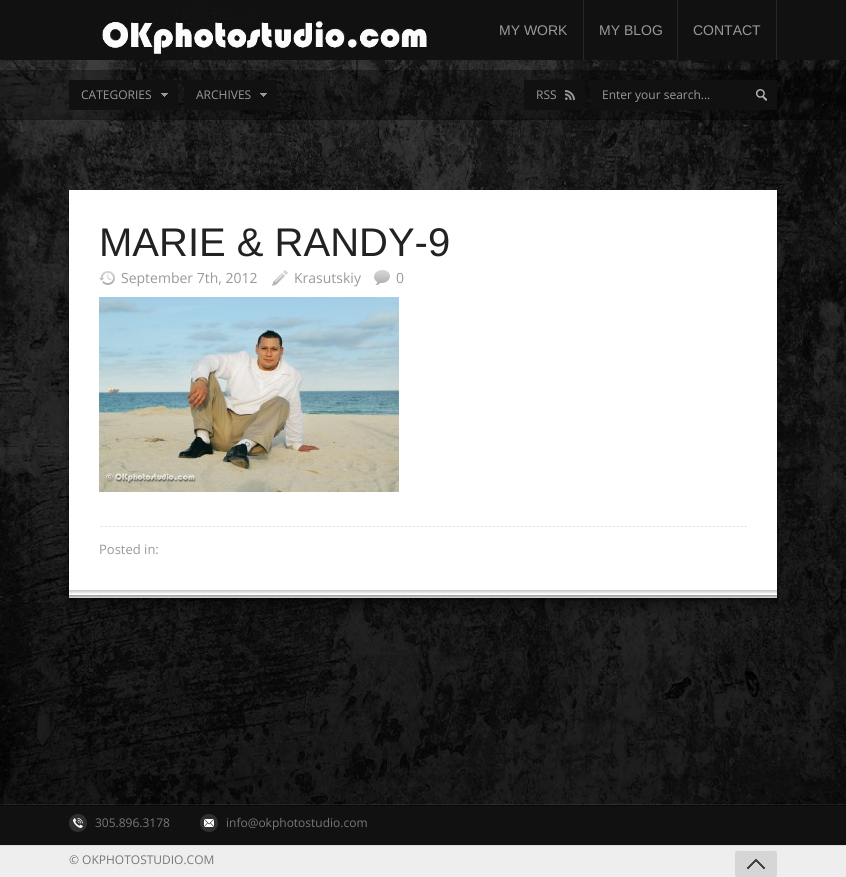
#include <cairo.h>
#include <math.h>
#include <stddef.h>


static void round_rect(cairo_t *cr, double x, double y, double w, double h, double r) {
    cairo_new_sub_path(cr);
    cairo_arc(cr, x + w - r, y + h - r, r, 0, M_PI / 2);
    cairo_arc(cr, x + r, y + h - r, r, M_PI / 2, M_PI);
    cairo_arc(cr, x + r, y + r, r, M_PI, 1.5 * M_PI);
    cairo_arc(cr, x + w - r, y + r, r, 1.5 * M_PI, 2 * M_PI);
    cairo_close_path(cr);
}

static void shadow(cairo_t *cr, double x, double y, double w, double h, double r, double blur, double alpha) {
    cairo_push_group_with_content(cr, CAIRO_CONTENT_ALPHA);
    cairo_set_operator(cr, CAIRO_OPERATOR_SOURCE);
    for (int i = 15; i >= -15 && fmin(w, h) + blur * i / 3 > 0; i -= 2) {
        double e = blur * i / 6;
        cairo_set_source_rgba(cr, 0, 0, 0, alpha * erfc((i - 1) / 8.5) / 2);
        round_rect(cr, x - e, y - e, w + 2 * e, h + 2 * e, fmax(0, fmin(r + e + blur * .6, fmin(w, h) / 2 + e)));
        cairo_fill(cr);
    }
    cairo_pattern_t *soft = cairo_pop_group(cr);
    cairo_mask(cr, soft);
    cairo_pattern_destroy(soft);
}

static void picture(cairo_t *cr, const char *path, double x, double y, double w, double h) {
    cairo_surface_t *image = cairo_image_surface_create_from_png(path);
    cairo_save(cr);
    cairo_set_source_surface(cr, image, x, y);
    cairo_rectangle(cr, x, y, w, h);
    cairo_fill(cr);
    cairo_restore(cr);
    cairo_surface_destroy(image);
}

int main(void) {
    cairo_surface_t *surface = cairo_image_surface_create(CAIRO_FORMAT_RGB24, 846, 877);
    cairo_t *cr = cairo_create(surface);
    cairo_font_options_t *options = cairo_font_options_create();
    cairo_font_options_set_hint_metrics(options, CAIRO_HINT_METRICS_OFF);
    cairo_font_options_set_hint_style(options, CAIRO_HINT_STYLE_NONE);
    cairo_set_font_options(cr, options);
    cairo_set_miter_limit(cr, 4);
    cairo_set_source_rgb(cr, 1, 1, 1);
    cairo_paint(cr);
    cairo_set_source_rgb(cr, 0.067, 0.067, 0.067);
    cairo_rectangle(cr, 0, 0, 846, 60);
    cairo_fill(cr);
    picture(cr, "img14.png", 0, 60, 846, 745);
    cairo_set_source_rgba(cr, 0, 0, 0, 0.35);
    cairo_rectangle(cr, 0, 70, 846, 50);
    cairo_fill(cr);
    picture(cr, "img1.png", 102, 5, 325, 70);
    cairo_set_source_rgb(cr, 0.149, 0.149, 0.149);
    cairo_rectangle(cr, 583, 0, 1, 60);
    cairo_fill(cr);
    cairo_select_font_face(cr, "Liberation Sans", CAIRO_FONT_SLANT_NORMAL, CAIRO_FONT_WEIGHT_NORMAL);
    cairo_set_font_size(cr, 14);
    cairo_set_source_rgb(cr, 0.6, 0.6, 0.6);
    cairo_move_to(cr, 499, 35);
    cairo_show_text(cr, "MY WORK");
    cairo_set_source_rgb(cr, 0.149, 0.149, 0.149);
    cairo_rectangle(cr, 677, 0, 1, 60);
    cairo_fill(cr);
    cairo_set_source_rgb(cr, 0.6, 0.6, 0.6);
    cairo_move_to(cr, 599, 35);
    cairo_show_text(cr, "MY BLOG");
    cairo_set_source_rgb(cr, 0.149, 0.149, 0.149);
    cairo_rectangle(cr, 776, 0, 1, 60);
    cairo_fill(cr);
    cairo_set_source_rgb(cr, 0.6, 0.6, 0.6);
    cairo_move_to(cr, 693, 35);
    cairo_show_text(cr, "CONTACT");
    cairo_set_source_rgba(cr, 0, 0, 0, 0.15);
    cairo_rectangle(cr, 0, 119, 846, 1);
    cairo_fill(cr);
    cairo_set_source_rgb(cr, 0.067, 0.067, 0.067);
    cairo_rectangle(cr, 69, 80, 109, 30);
    cairo_fill(cr);
    picture(cr, "img2.png", 161, 93, 7, 4);
    cairo_select_font_face(cr, "Open Sans", CAIRO_FONT_SLANT_NORMAL, CAIRO_FONT_WEIGHT_NORMAL);
    cairo_set_font_size(cr, 12);
    cairo_set_source_rgb(cr, 0.6, 0.6, 0.6);
    cairo_move_to(cr, 81, 99);
    cairo_show_text(cr, "CATEGORIES");
    cairo_set_source_rgb(cr, 0.067, 0.067, 0.067);
    cairo_rectangle(cr, 184, 80, 93, 30);
    cairo_fill(cr);
    picture(cr, "img2.png", 260, 93, 7, 4);
    cairo_set_source_rgb(cr, 0.6, 0.6, 0.6);
    cairo_move_to(cr, 196, 99);
    cairo_show_text(cr, "ARCHIVES");
    cairo_set_source_rgb(cr, 0.067, 0.067, 0.067);
    cairo_rectangle(cr, 524, 80, 61, 30);
    cairo_fill(cr);
    picture(cr, "img3.png", 565, 90, 10, 10);
    cairo_set_source_rgb(cr, 0.6, 0.6, 0.6);
    cairo_move_to(cr, 536, 99);
    cairo_show_text(cr, "RSS");
    cairo_set_source_rgb(cr, 0.067, 0.067, 0.067);
    cairo_rectangle(cr, 591, 80, 186, 30);
    cairo_fill(cr);
    picture(cr, "img4.png", 756, 89, 11, 12);
    cairo_set_source_rgb(cr, 0.6, 0.6, 0.6);
    cairo_move_to(cr, 602, 99);
    cairo_show_text(cr, "Enter your search...");
    cairo_set_source_rgb(cr, 0, 0, 0);
    shadow(cr, 69, 192, 708, 408, 0, 1, 0.4);
    shadow(cr, 69, 200, 708, 408, 0, 5, 0.3);
    cairo_set_source_rgb(cr, 1, 1, 1);
    cairo_rectangle(cr, 69, 190, 708, 408);
    cairo_fill(cr);
    picture(cr, "img5.png", 69, 590, 708, 8);
    cairo_select_font_face(cr, "Liberation Sans", CAIRO_FONT_SLANT_NORMAL, CAIRO_FONT_WEIGHT_NORMAL);
    cairo_set_font_size(cr, 40);
    cairo_set_source_rgb(cr, 0.133, 0.133, 0.133);
    cairo_move_to(cr, 99, 256);
    cairo_show_text(cr, "MARIE & RANDY-9");
    picture(cr, "img6.png", 99, 271, 16, 14);
    cairo_select_font_face(cr, "Open Sans", CAIRO_FONT_SLANT_NORMAL, CAIRO_FONT_WEIGHT_NORMAL);
    cairo_set_font_size(cr, 14);
    cairo_set_source_rgb(cr, 0.6, 0.6, 0.6);
    cairo_move_to(cr, 121, 283);
    cairo_show_text(cr, "September 7th, 2012");
    picture(cr, "img7.png", 272, 270, 16, 16);
    cairo_move_to(cr, 294, 283);
    cairo_show_text(cr, "Krasutskiy");
    picture(cr, "img8.png", 374, 270, 16, 15);
    cairo_move_to(cr, 396, 283);
    cairo_show_text(cr, "0");
    picture(cr, "img9.png", 99, 297, 300, 195);
    picture(cr, "img10.png", 99, 526, 648, 1);
    cairo_set_font_size(cr, 13);
    cairo_move_to(cr, 99, 554);
    cairo_show_text(cr, "Posted in:");
    cairo_set_source_rgba(cr, 1, 1, 1, 0.08);
    cairo_rectangle(cr, 0, 804, 846, 1);
    cairo_fill(cr);
    cairo_set_source_rgb(cr, 0.067, 0.067, 0.067);
    cairo_rectangle(cr, 0, 806, 846, 39);
    cairo_fill(cr);
    cairo_set_source_rgb(cr, 0.039, 0.039, 0.039);
    cairo_rectangle(cr, 0, 805, 846, 1);
    cairo_fill(cr);
    picture(cr, "img11.png", 69, 814, 18, 18);
    cairo_set_font_size(cr, 12);
    cairo_set_source_rgb(cr, 0.467, 0.467, 0.467);
    cairo_move_to(cr, 95, 827);
    cairo_show_text(cr, "305.896.3178");
    picture(cr, "img12.png", 200, 814, 18, 18);
    cairo_move_to(cr, 226, 827);
    cairo_show_text(cr, "info@okphotostudio.com");
    cairo_set_source_rgb(cr, 0.933, 0.933, 0.933);
    cairo_rectangle(cr, 0, 846, 846, 31);
    cairo_fill(cr);
    cairo_set_source_rgb(cr, 0.867, 0.867, 0.867);
    cairo_rectangle(cr, 0, 845, 846, 1);
    cairo_fill(cr);
    cairo_set_source_rgb(cr, 0.467, 0.467, 0.467);
    cairo_move_to(cr, 69, 864);
    cairo_show_text(cr, "© OKPHOTOSTUDIO.COM");
    cairo_set_source_rgb(cr, 0.839, 0.839, 0.839);
    round_rect(cr, 735, 851, 42, 26, 2);
    cairo_fill(cr);
    picture(cr, "img13.png", 747, 859, 18, 10);
    cairo_surface_write_to_png(surface, "page.png");
    cairo_font_options_destroy(options);
    cairo_destroy(cr);
    cairo_surface_destroy(surface);
    return 0;
}
